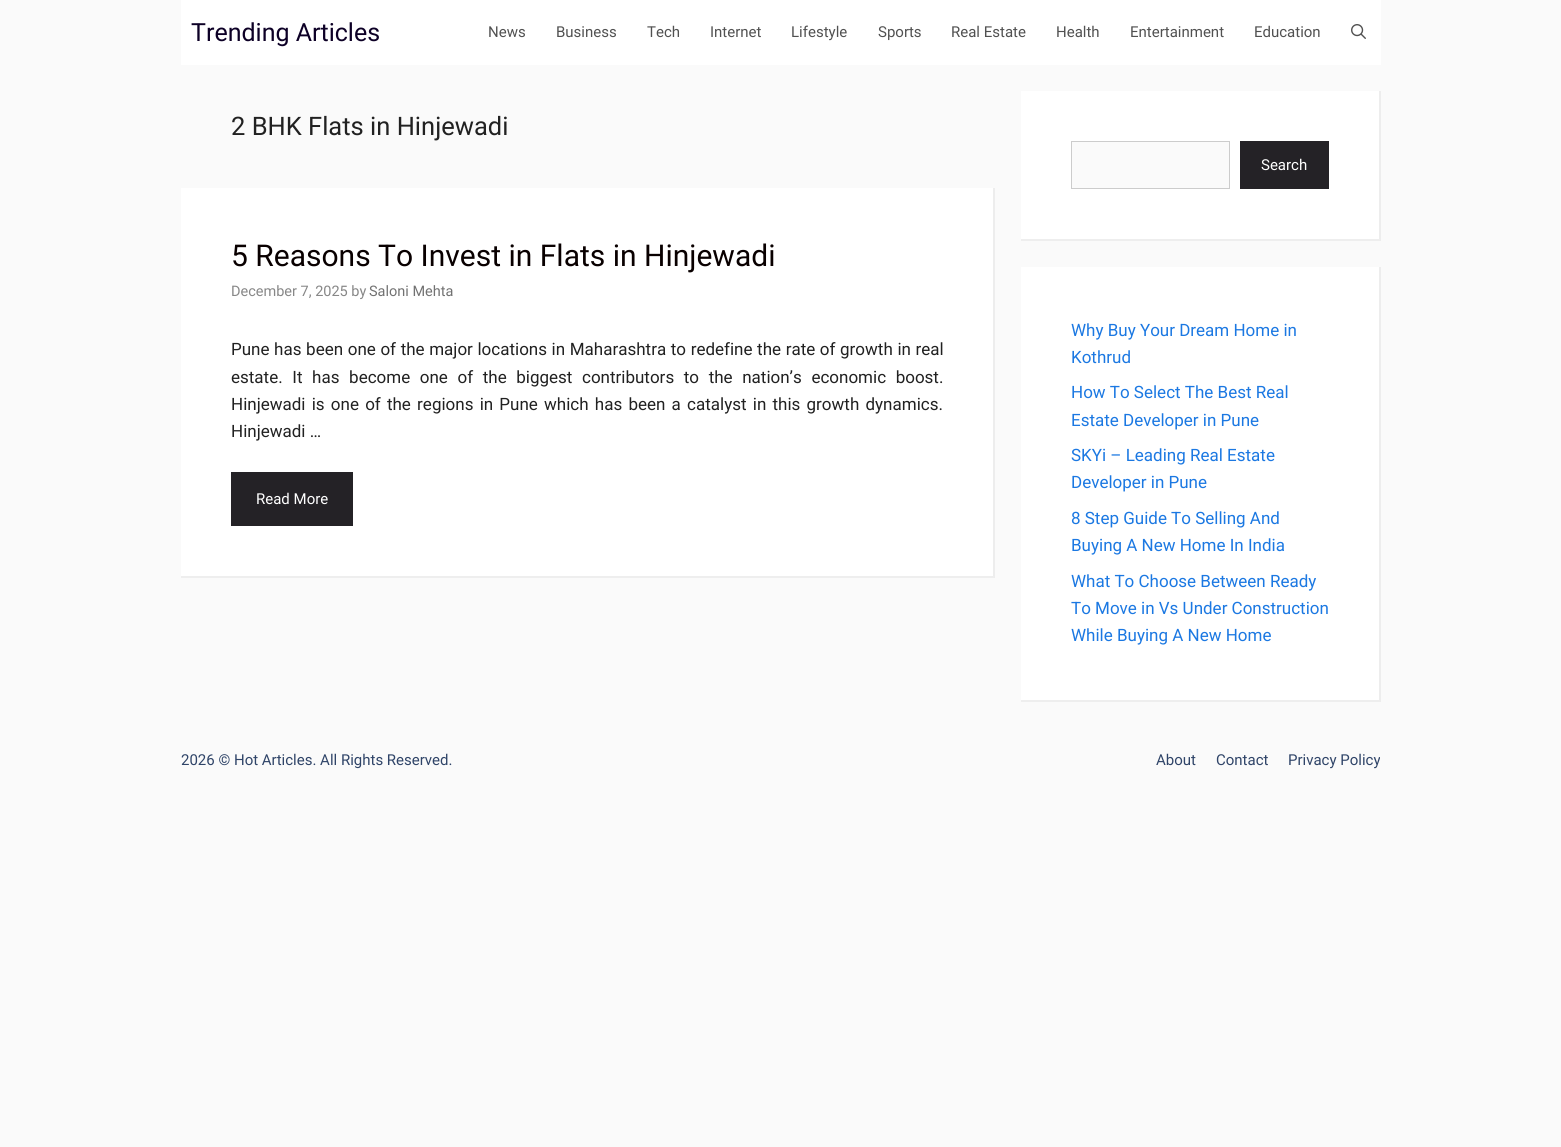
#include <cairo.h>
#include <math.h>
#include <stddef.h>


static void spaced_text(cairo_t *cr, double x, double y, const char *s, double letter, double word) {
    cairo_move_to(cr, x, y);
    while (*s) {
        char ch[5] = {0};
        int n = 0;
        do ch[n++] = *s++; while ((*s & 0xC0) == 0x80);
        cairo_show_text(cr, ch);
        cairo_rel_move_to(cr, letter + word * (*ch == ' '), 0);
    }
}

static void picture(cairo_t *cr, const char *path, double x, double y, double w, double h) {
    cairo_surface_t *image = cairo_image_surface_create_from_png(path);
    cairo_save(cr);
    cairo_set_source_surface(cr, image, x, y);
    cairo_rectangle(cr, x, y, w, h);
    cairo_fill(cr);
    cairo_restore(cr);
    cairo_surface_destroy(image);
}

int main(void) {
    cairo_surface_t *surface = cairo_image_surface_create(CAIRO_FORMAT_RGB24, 1561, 1147);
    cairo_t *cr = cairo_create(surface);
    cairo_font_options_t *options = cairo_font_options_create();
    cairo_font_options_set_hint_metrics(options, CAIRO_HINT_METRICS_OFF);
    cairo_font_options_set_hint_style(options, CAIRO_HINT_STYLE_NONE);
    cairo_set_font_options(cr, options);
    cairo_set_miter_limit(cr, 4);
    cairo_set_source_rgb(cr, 0.98, 0.98, 0.98);
    cairo_paint(cr);
    cairo_set_source_rgb(cr, 1, 1, 1);
    cairo_rectangle(cr, 181, 0, 1200, 65);
    cairo_fill(cr);
    cairo_select_font_face(cr, "Roboto", CAIRO_FONT_SLANT_NORMAL, CAIRO_FONT_WEIGHT_NORMAL);
    cairo_set_font_size(cr, 25);
    cairo_set_source_rgb(cr, 0.051, 0, 0.149);
    cairo_move_to(cr, 191, 41);
    cairo_show_text(cr, "Trending Articles");
    cairo_set_font_size(cr, 15);
    cairo_set_source_rgb(cr, 0.318, 0.318, 0.318);
    cairo_move_to(cr, 488, 37);
    cairo_show_text(cr, "News");
    cairo_move_to(cr, 556, 37);
    cairo_show_text(cr, "Business");
    cairo_move_to(cr, 647, 37);
    cairo_show_text(cr, "Tech");
    cairo_move_to(cr, 710, 37);
    cairo_show_text(cr, "Internet");
    cairo_move_to(cr, 791, 37);
    cairo_show_text(cr, "Lifestyle");
    cairo_move_to(cr, 878, 37);
    cairo_show_text(cr, "Sports");
    cairo_move_to(cr, 951, 37);
    cairo_show_text(cr, "Real Estate");
    cairo_move_to(cr, 1056, 37);
    cairo_show_text(cr, "Health");
    cairo_move_to(cr, 1130, 37);
    cairo_show_text(cr, "Entertainment");
    cairo_move_to(cr, 1254, 37);
    cairo_show_text(cr, "Education");
    picture(cr, "img1.png", 1351, 24, 15, 15);
    cairo_set_font_size(cr, 25.5);
    cairo_set_source_rgb(cr, 0.129, 0.129, 0.129);
    cairo_move_to(cr, 231, 135);
    cairo_show_text(cr, "2 BHK Flats in Hinjewadi");
    cairo_set_source_rgb(cr, 1, 1, 1);
    cairo_rectangle(cr, 181, 188, 814, 390);
    cairo_fill(cr);
    cairo_set_source_rgb(cr, 0.929, 0.929, 0.929);
    cairo_new_path(cr);
    cairo_move_to(cr, 995, 188);
    cairo_line_to(cr, 995, 578);
    cairo_line_to(cr, 993, 576);
    cairo_line_to(cr, 993, 188);
    cairo_close_path(cr);
    cairo_fill(cr);
    cairo_set_source_rgba(cr, 0, 0, 0, 0.07);
    cairo_new_path(cr);
    cairo_move_to(cr, 995, 578);
    cairo_line_to(cr, 181, 578);
    cairo_line_to(cr, 181, 576);
    cairo_line_to(cr, 993, 576);
    cairo_close_path(cr);
    cairo_fill(cr);
    cairo_set_font_size(cr, 30);
    cairo_set_source_rgb(cr, 0.039, 0, 0);
    cairo_move_to(cr, 231, 266);
    cairo_show_text(cr, "5 Reasons To Invest in Flats in Hinjewadi");
    cairo_set_font_size(cr, 14.5);
    cairo_set_source_rgb(cr, 0.529, 0.529, 0.529);
    cairo_move_to(cr, 231, 296);
    cairo_show_text(cr, "December 7, 2025 by");
    cairo_set_source_rgb(cr, 0.447, 0.447, 0.447);
    cairo_move_to(cr, 369, 296);
    cairo_show_text(cr, "Saloni Mehta");
    cairo_set_font_size(cr, 17);
    cairo_set_source_rgb(cr, 0.129, 0.129, 0.129);
    spaced_text(cr, 231, 355, "Pune has been one of the major locations in Maharashtra to redefine the rate of growth in real", 0, 0.4);
    spaced_text(cr, 231, 383, "estate. It has become one of the biggest contributors to the nation’s economic boost.", 0, 5.4);
    spaced_text(cr, 231, 410, "Hinjewadi is one of the regions in Pune which has been a catalyst in this growth dynamics.", 0, 2);
    cairo_move_to(cr, 231, 437);
    cairo_show_text(cr, "Hinjewadi …");
    cairo_set_source_rgb(cr, 0.141, 0.133, 0.149);
    cairo_rectangle(cr, 231, 472, 122, 54);
    cairo_fill(cr);
    cairo_set_font_size(cr, 15);
    cairo_set_source_rgb(cr, 1, 1, 1);
    cairo_move_to(cr, 256, 504);
    cairo_show_text(cr, "Read More");
    cairo_rectangle(cr, 1021, 91, 360, 150);
    cairo_fill(cr);
    cairo_set_source_rgb(cr, 0.929, 0.929, 0.929);
    cairo_new_path(cr);
    cairo_move_to(cr, 1381, 91);
    cairo_line_to(cr, 1381, 241);
    cairo_line_to(cr, 1379, 239);
    cairo_line_to(cr, 1379, 91);
    cairo_close_path(cr);
    cairo_fill(cr);
    cairo_set_source_rgba(cr, 0, 0, 0, 0.07);
    cairo_new_path(cr);
    cairo_move_to(cr, 1381, 241);
    cairo_line_to(cr, 1021, 241);
    cairo_line_to(cr, 1021, 239);
    cairo_line_to(cr, 1379, 239);
    cairo_close_path(cr);
    cairo_fill(cr);
    cairo_set_source_rgb(cr, 0.98, 0.98, 0.98);
    cairo_rectangle(cr, 1071.5, 141.5, 158, 47);
    cairo_fill_preserve(cr);
    cairo_set_source_rgb(cr, 0.8, 0.8, 0.8);
    cairo_set_line_width(cr, 1);
    cairo_stroke(cr);
    cairo_set_source_rgb(cr, 0.141, 0.133, 0.149);
    cairo_rectangle(cr, 1240, 141, 89, 48);
    cairo_fill(cr);
    cairo_set_source_rgb(cr, 1, 1, 1);
    cairo_move_to(cr, 1261, 170);
    cairo_show_text(cr, "Search");
    cairo_rectangle(cr, 1021, 267, 360, 435);
    cairo_fill(cr);
    cairo_set_source_rgb(cr, 0.929, 0.929, 0.929);
    cairo_new_path(cr);
    cairo_move_to(cr, 1381, 267);
    cairo_line_to(cr, 1381, 702);
    cairo_line_to(cr, 1379, 700);
    cairo_line_to(cr, 1379, 267);
    cairo_close_path(cr);
    cairo_fill(cr);
    cairo_set_source_rgba(cr, 0, 0, 0, 0.07);
    cairo_new_path(cr);
    cairo_move_to(cr, 1381, 702);
    cairo_line_to(cr, 1021, 702);
    cairo_line_to(cr, 1021, 700);
    cairo_line_to(cr, 1379, 700);
    cairo_close_path(cr);
    cairo_fill(cr);
    cairo_set_font_size(cr, 17);
    cairo_set_source_rgb(cr, 0.106, 0.471, 0.886);
    cairo_move_to(cr, 1071, 336);
    cairo_show_text(cr, "Why Buy Your Dream Home in");
    cairo_move_to(cr, 1071, 363);
    cairo_show_text(cr, "Kothrud");
    cairo_move_to(cr, 1071, 398);
    cairo_show_text(cr, "How To Select The Best Real");
    cairo_move_to(cr, 1071, 426);
    cairo_show_text(cr, "Estate Developer in Pune");
    cairo_move_to(cr, 1071, 461);
    cairo_show_text(cr, "SKYi – Leading Real Estate");
    cairo_move_to(cr, 1071, 488);
    cairo_show_text(cr, "Developer in Pune");
    cairo_move_to(cr, 1071, 524);
    cairo_show_text(cr, "8 Step Guide To Selling And");
    cairo_move_to(cr, 1071, 551);
    cairo_show_text(cr, "Buying A New Home In India");
    cairo_move_to(cr, 1071, 587);
    cairo_show_text(cr, "What To Choose Between Ready");
    cairo_move_to(cr, 1071, 614);
    cairo_show_text(cr, "To Move in Vs Under Construction");
    cairo_move_to(cr, 1071, 641);
    cairo_show_text(cr, "While Buying A New Home");
    cairo_set_font_size(cr, 15);
    cairo_set_source_rgb(cr, 0.184, 0.267, 0.408);
    cairo_move_to(cr, 181, 765);
    cairo_show_text(cr, "2026 © Hot Articles. All Rights Reserved.");
    cairo_move_to(cr, 1156, 765);
    cairo_show_text(cr, "About");
    cairo_move_to(cr, 1216, 765);
    cairo_show_text(cr, "Contact");
    cairo_move_to(cr, 1288, 765);
    cairo_show_text(cr, "Privacy Policy");
    cairo_surface_write_to_png(surface, "page.png");
    cairo_font_options_destroy(options);
    cairo_destroy(cr);
    cairo_surface_destroy(surface);
    return 0;
}
